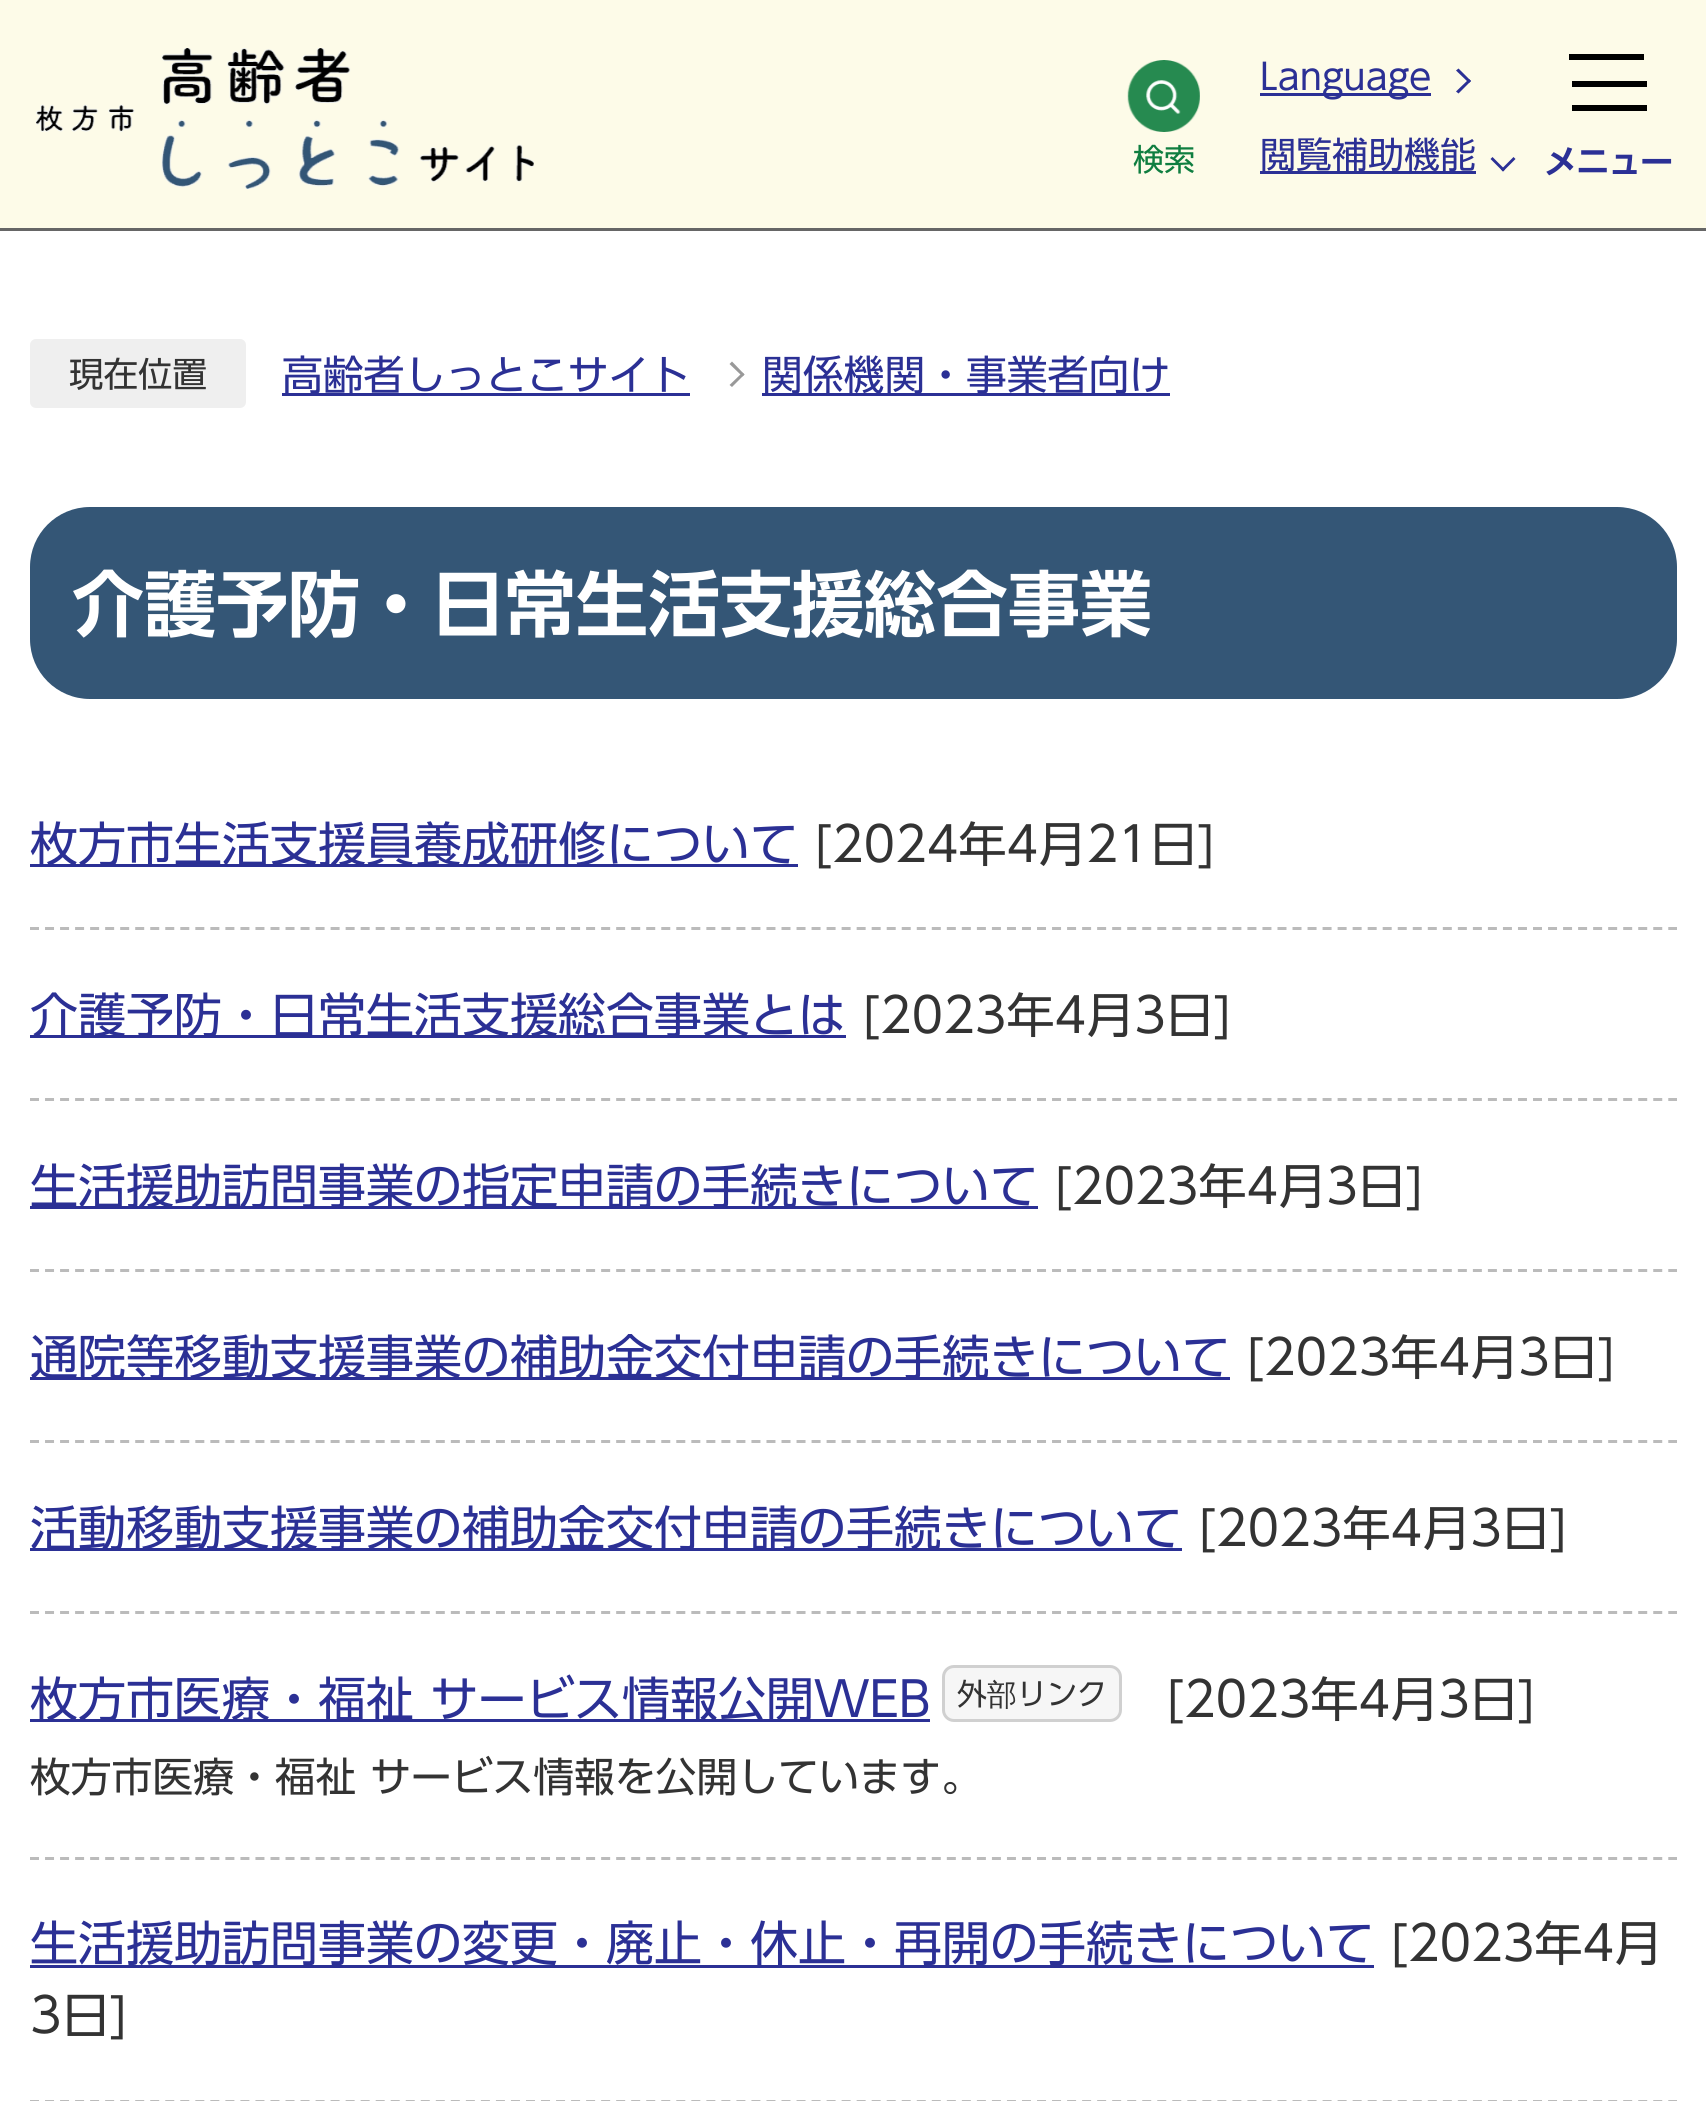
#include <cairo.h>
#include <math.h>
#include <stddef.h>


static void spaced_text(cairo_t *cr, double x, double y, const char *s, double letter, double word) {
    cairo_move_to(cr, x, y);
    while (*s) {
        char ch[5] = {0};
        int n = 0;
        do ch[n++] = *s++; while ((*s & 0xC0) == 0x80);
        cairo_show_text(cr, ch);
        cairo_rel_move_to(cr, letter + word * (*ch == ' '), 0);
    }
}

static void round_rect(cairo_t *cr, double x, double y, double w, double h, double r) {
    cairo_new_sub_path(cr);
    cairo_arc(cr, x + w - r, y + h - r, r, 0, M_PI / 2);
    cairo_arc(cr, x + r, y + h - r, r, M_PI / 2, M_PI);
    cairo_arc(cr, x + r, y + r, r, M_PI, 1.5 * M_PI);
    cairo_arc(cr, x + w - r, y + r, r, 1.5 * M_PI, 2 * M_PI);
    cairo_close_path(cr);
}

static void picture(cairo_t *cr, const char *path, double x, double y, double w, double h) {
    cairo_surface_t *image = cairo_image_surface_create_from_png(path);
    cairo_save(cr);
    cairo_set_source_surface(cr, image, x, y);
    cairo_rectangle(cr, x, y, w, h);
    cairo_fill(cr);
    cairo_restore(cr);
    cairo_surface_destroy(image);
}

int main(void) {
    cairo_surface_t *surface = cairo_image_surface_create(CAIRO_FORMAT_RGB24, 1706, 2101);
    cairo_t *cr = cairo_create(surface);
    cairo_font_options_t *options = cairo_font_options_create();
    cairo_font_options_set_hint_metrics(options, CAIRO_HINT_METRICS_OFF);
    cairo_font_options_set_hint_style(options, CAIRO_HINT_STYLE_NONE);
    cairo_set_font_options(cr, options);
    cairo_set_miter_limit(cr, 4);
    cairo_set_source_rgb(cr, 1, 1, 1);
    cairo_paint(cr);
    cairo_set_source_rgb(cr, 0.4, 0.4, 0.4);
    cairo_rectangle(cr, 0, 228, 1706, 3);
    cairo_fill(cr);
    cairo_set_source_rgb(cr, 0.992, 0.984, 0.91);
    cairo_rectangle(cr, 0, 0, 1706, 228);
    cairo_fill(cr);
    picture(cr, "img1.png", 36, 48, 498, 141);
    picture(cr, "img2.png", 1127, 60, 73, 72);
    cairo_select_font_face(cr, "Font", CAIRO_FONT_SLANT_NORMAL, CAIRO_FONT_WEIGHT_NORMAL);
    cairo_set_font_size(cr, 31);
    cairo_set_source_rgb(cr, 0.059, 0.494, 0.251);
    cairo_move_to(cr, 1133, 171);
    cairo_show_text(cr, "検索");
    cairo_set_source_rgb(cr, 0.169, 0.188, 0.584);
    cairo_rectangle(cr, 1260, 93, 171, 3);
    cairo_fill(cr);
    cairo_set_font_size(cr, 36);
    cairo_move_to(cr, 1260, 90);
    cairo_show_text(cr, "Language");
    cairo_new_path(cr);
    cairo_move_to(cr, 1456, 70.5);
    cairo_line_to(cr, 1458.5, 68.5);
    cairo_line_to(cr, 1471, 81);
    cairo_line_to(cr, 1469, 83);
    cairo_close_path(cr);
    cairo_fill(cr);
    cairo_new_path(cr);
    cairo_move_to(cr, 1456, 91.5);
    cairo_line_to(cr, 1469, 79);
    cairo_line_to(cr, 1471, 81);
    cairo_line_to(cr, 1458.5, 93.5);
    cairo_close_path(cr);
    cairo_fill(cr);
    cairo_rectangle(cr, 1260, 171, 216, 3);
    cairo_fill(cr);
    cairo_move_to(cr, 1260, 168);
    cairo_show_text(cr, "閲覧補助機能");
    cairo_new_path(cr);
    cairo_move_to(cr, 1513.5, 157);
    cairo_line_to(cr, 1515.5, 159);
    cairo_line_to(cr, 1503, 171.5);
    cairo_line_to(cr, 1501, 169.5);
    cairo_close_path(cr);
    cairo_fill(cr);
    cairo_new_path(cr);
    cairo_move_to(cr, 1492.5, 157);
    cairo_line_to(cr, 1505, 169.5);
    cairo_line_to(cr, 1503, 171.5);
    cairo_line_to(cr, 1490.5, 159);
    cairo_close_path(cr);
    cairo_fill(cr);
    cairo_set_source_rgb(cr, 0, 0, 0);
    cairo_rectangle(cr, 1569, 54, 75, 6);
    cairo_fill(cr);
    cairo_rectangle(cr, 1572, 81, 75, 6);
    cairo_fill(cr);
    cairo_rectangle(cr, 1572, 105, 75, 6);
    cairo_fill(cr);
    cairo_select_font_face(cr, "Font SemiBold", CAIRO_FONT_SLANT_NORMAL, CAIRO_FONT_WEIGHT_NORMAL);
    cairo_set_font_size(cr, 33.5);
    cairo_set_source_rgb(cr, 0.169, 0.188, 0.584);
    spaced_text(cr, 1544, 174, "メニュー", -1.5, 0);
    cairo_set_source_rgb(cr, 0.937, 0.937, 0.937);
    round_rect(cr, 30, 339, 216, 69, 6);
    cairo_fill(cr);
    cairo_select_font_face(cr, "Font", CAIRO_FONT_SLANT_NORMAL, CAIRO_FONT_WEIGHT_NORMAL);
    cairo_set_font_size(cr, 34.5);
    cairo_set_source_rgb(cr, 0.2, 0.2, 0.2);
    cairo_move_to(cr, 69, 387);
    cairo_show_text(cr, "現在位置");
    cairo_set_source_rgb(cr, 0.169, 0.188, 0.584);
    cairo_rectangle(cr, 282, 393, 408, 3);
    cairo_fill(cr);
    cairo_set_font_size(cr, 40.8);
    cairo_move_to(cr, 282, 390);
    cairo_show_text(cr, "高齢者しっとこサイト");
    cairo_set_source_rgb(cr, 0.6, 0.6, 0.6);
    cairo_new_path(cr);
    cairo_move_to(cr, 729.5, 364);
    cairo_line_to(cr, 732, 361.5);
    cairo_line_to(cr, 744.5, 374.5);
    cairo_line_to(cr, 742.5, 376.5);
    cairo_close_path(cr);
    cairo_fill(cr);
    cairo_new_path(cr);
    cairo_move_to(cr, 729.5, 385);
    cairo_line_to(cr, 742.5, 372.5);
    cairo_line_to(cr, 744.5, 374.5);
    cairo_line_to(cr, 732, 387);
    cairo_close_path(cr);
    cairo_fill(cr);
    cairo_set_source_rgb(cr, 0.169, 0.188, 0.584);
    cairo_rectangle(cr, 762, 393, 408, 3);
    cairo_fill(cr);
    cairo_move_to(cr, 762, 390);
    cairo_show_text(cr, "関係機関・事業者向け");
    cairo_set_source_rgb(cr, 0.204, 0.337, 0.463);
    round_rect(cr, 30, 507, 1647, 192, 60);
    cairo_fill(cr);
    cairo_select_font_face(cr, "Font SemiBold", CAIRO_FONT_SLANT_NORMAL, CAIRO_FONT_WEIGHT_NORMAL);
    cairo_set_font_size(cr, 72);
    cairo_set_source_rgb(cr, 1, 1, 1);
    cairo_move_to(cr, 72, 631);
    cairo_show_text(cr, "介護予防・日常生活支援総合事業");
    cairo_new_path(cr);
    cairo_move_to(cr, 30, 928.5);
    cairo_line_to(cr, 1677, 928.5);
    cairo_set_source_rgb(cr, 0.733, 0.733, 0.733);
    cairo_set_line_width(cr, 3);
    cairo_set_dash(cr, (double[]){9, 6.03}, 2, 0);
    cairo_stroke(cr);
    cairo_set_source_rgb(cr, 0.169, 0.188, 0.584);
    cairo_rectangle(cr, 30, 864, 768, 3);
    cairo_fill(cr);
    cairo_select_font_face(cr, "Font", CAIRO_FONT_SLANT_NORMAL, CAIRO_FONT_WEIGHT_NORMAL);
    cairo_set_font_size(cr, 48);
    cairo_move_to(cr, 30, 862);
    cairo_show_text(cr, "枚方市生活支援員養成研修について");
    cairo_set_source_rgb(cr, 0.2, 0.2, 0.2);
    cairo_move_to(cr, 814, 862);
    cairo_show_text(cr, "[2024年4月21日]");
    cairo_new_path(cr);
    cairo_move_to(cr, 30, 1099.5);
    cairo_line_to(cr, 1677, 1099.5);
    cairo_set_source_rgb(cr, 0.733, 0.733, 0.733);
    cairo_stroke(cr);
    cairo_set_source_rgb(cr, 0.169, 0.188, 0.584);
    cairo_rectangle(cr, 30, 1035, 816, 3);
    cairo_fill(cr);
    cairo_move_to(cr, 30, 1033);
    cairo_show_text(cr, "介護予防・日常生活支援総合事業とは");
    cairo_set_source_rgb(cr, 0.2, 0.2, 0.2);
    cairo_move_to(cr, 862, 1033);
    cairo_show_text(cr, "[2023年4月3日]");
    cairo_new_path(cr);
    cairo_move_to(cr, 30, 1270.5);
    cairo_line_to(cr, 1677, 1270.5);
    cairo_set_source_rgb(cr, 0.733, 0.733, 0.733);
    cairo_stroke(cr);
    cairo_set_source_rgb(cr, 0.169, 0.188, 0.584);
    cairo_rectangle(cr, 30, 1206, 1008, 3);
    cairo_fill(cr);
    cairo_move_to(cr, 30, 1204);
    cairo_show_text(cr, "生活援助訪問事業の指定申請の手続きについて");
    cairo_set_source_rgb(cr, 0.2, 0.2, 0.2);
    cairo_move_to(cr, 1054, 1204);
    cairo_show_text(cr, "[2023年4月3日]");
    cairo_new_path(cr);
    cairo_move_to(cr, 30, 1441.5);
    cairo_line_to(cr, 1677, 1441.5);
    cairo_set_source_rgb(cr, 0.733, 0.733, 0.733);
    cairo_stroke(cr);
    cairo_set_source_rgb(cr, 0.169, 0.188, 0.584);
    cairo_rectangle(cr, 30, 1377, 1200, 3);
    cairo_fill(cr);
    cairo_move_to(cr, 30, 1375);
    cairo_show_text(cr, "通院等移動支援事業の補助金交付申請の手続きについて");
    cairo_set_source_rgb(cr, 0.2, 0.2, 0.2);
    cairo_move_to(cr, 1246, 1375);
    cairo_show_text(cr, "[2023年4月3日]");
    cairo_new_path(cr);
    cairo_move_to(cr, 30, 1612.5);
    cairo_line_to(cr, 1677, 1612.5);
    cairo_set_source_rgb(cr, 0.733, 0.733, 0.733);
    cairo_stroke(cr);
    cairo_set_source_rgb(cr, 0.169, 0.188, 0.584);
    cairo_rectangle(cr, 30, 1548, 1152, 3);
    cairo_fill(cr);
    cairo_move_to(cr, 30, 1546);
    cairo_show_text(cr, "活動移動支援事業の補助金交付申請の手続きについて");
    cairo_set_source_rgb(cr, 0.2, 0.2, 0.2);
    cairo_move_to(cr, 1198, 1546);
    cairo_show_text(cr, "[2023年4月3日]");
    cairo_new_path(cr);
    cairo_move_to(cr, 30, 1858.5);
    cairo_line_to(cr, 1677, 1858.5);
    cairo_set_source_rgb(cr, 0.733, 0.733, 0.733);
    cairo_stroke(cr);
    cairo_set_source_rgb(cr, 0.169, 0.188, 0.584);
    cairo_rectangle(cr, 30, 1719, 900, 3);
    cairo_fill(cr);
    cairo_move_to(cr, 30, 1717);
    cairo_show_text(cr, "枚方市医療・福祉 サービス情報公開WEB");
    cairo_set_source_rgb(cr, 0.961, 0.961, 0.961);
    round_rect(cr, 943.5, 1666.5, 177, 54, 10.5);
    cairo_fill_preserve(cr);
    cairo_set_source_rgb(cr, 0.816, 0.816, 0.816);
    cairo_set_dash(cr, NULL, 0, 0);
    cairo_stroke(cr);
    cairo_set_font_size(cr, 30);
    cairo_set_source_rgb(cr, 0.2, 0.2, 0.2);
    cairo_move_to(cr, 957, 1705);
    cairo_show_text(cr, "外");
    cairo_select_font_face(cr, "WenQuanYi Zen Hei Medium", CAIRO_FONT_SLANT_NORMAL, CAIRO_FONT_WEIGHT_NORMAL);
    cairo_move_to(cr, 987, 1705);
    cairo_show_text(cr, "部");
    cairo_select_font_face(cr, "Font", CAIRO_FONT_SLANT_NORMAL, CAIRO_FONT_WEIGHT_NORMAL);
    cairo_move_to(cr, 1017, 1705);
    cairo_show_text(cr, "リンク");
    cairo_set_font_size(cr, 48);
    cairo_move_to(cr, 1166, 1717);
    cairo_show_text(cr, "[2023年4月3日]");
    cairo_set_font_size(cr, 40.8);
    cairo_move_to(cr, 30, 1792);
    cairo_show_text(cr, "枚方市医療・福祉 サービス情報を公開しています。");
    cairo_new_path(cr);
    cairo_move_to(cr, 30, 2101.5);
    cairo_line_to(cr, 1677, 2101.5);
    cairo_set_source_rgb(cr, 0.733, 0.733, 0.733);
    cairo_set_dash(cr, (double[]){9, 6.03}, 2, 0);
    cairo_stroke(cr);
    cairo_set_source_rgb(cr, 0.169, 0.188, 0.584);
    cairo_rectangle(cr, 30, 1965, 1344, 3);
    cairo_fill(cr);
    cairo_set_font_size(cr, 48);
    cairo_move_to(cr, 30, 1961);
    cairo_show_text(cr, "生活援助訪問事業の変更・廃止・休止・再開の手続きについて");
    cairo_set_source_rgb(cr, 0.2, 0.2, 0.2);
    cairo_move_to(cr, 1390, 1961);
    cairo_show_text(cr, "[2023年4月");
    cairo_move_to(cr, 30, 2033);
    cairo_show_text(cr, "3日]");
    cairo_surface_write_to_png(surface, "page.png");
    cairo_font_options_destroy(options);
    cairo_destroy(cr);
    cairo_surface_destroy(surface);
    return 0;
}
